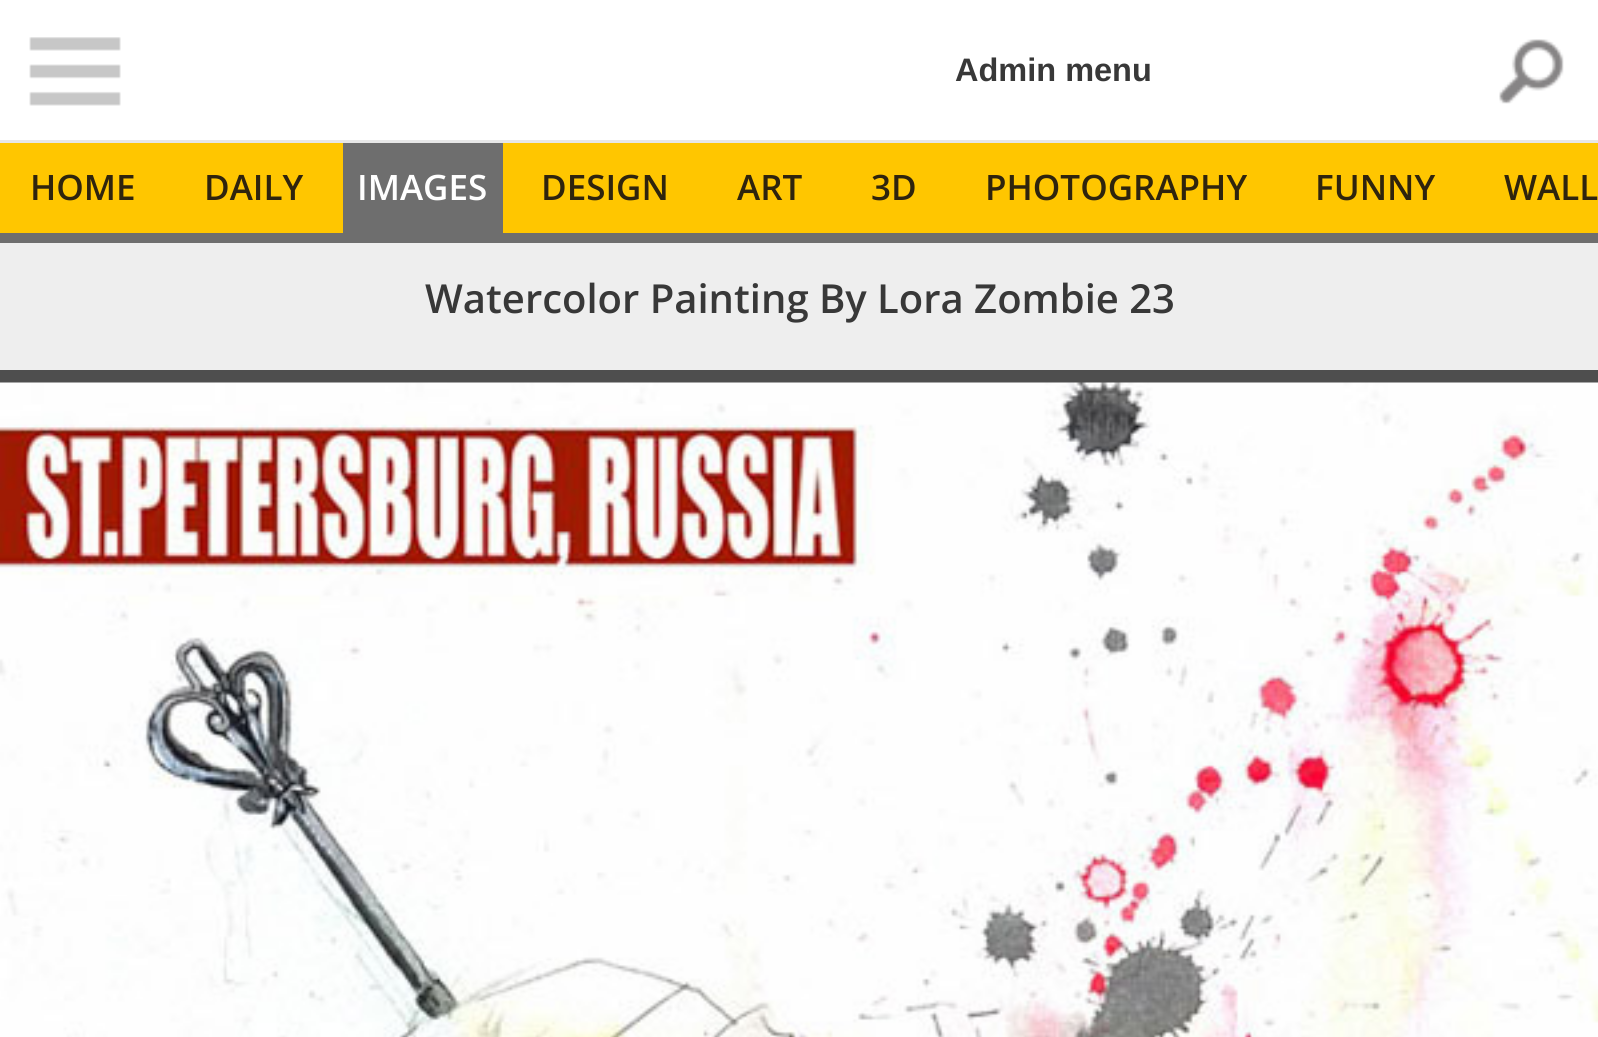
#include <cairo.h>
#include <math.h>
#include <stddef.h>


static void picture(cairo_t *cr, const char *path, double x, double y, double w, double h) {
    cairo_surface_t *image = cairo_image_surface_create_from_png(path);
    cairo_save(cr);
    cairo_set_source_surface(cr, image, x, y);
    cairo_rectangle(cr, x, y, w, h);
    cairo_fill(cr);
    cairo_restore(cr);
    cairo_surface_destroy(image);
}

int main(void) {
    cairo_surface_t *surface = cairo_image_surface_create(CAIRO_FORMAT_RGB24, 1598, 1037);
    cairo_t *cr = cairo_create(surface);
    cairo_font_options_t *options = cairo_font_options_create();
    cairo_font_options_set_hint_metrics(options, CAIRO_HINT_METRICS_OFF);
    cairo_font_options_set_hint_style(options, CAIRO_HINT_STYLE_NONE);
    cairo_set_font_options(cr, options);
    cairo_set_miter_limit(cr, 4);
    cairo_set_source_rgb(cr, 1, 1, 1);
    cairo_paint(cr);
    cairo_set_source_rgb(cr, 0.906, 0.906, 0.906);
    cairo_rectangle(cr, 0, 140, 1598, 3);
    cairo_fill(cr);
    picture(cr, "img1.png", 29, 37, 92, 69);
    cairo_select_font_face(cr, "Liberation Sans", CAIRO_FONT_SLANT_NORMAL, CAIRO_FONT_WEIGHT_BOLD);
    cairo_set_font_size(cr, 32.5);
    cairo_set_source_rgb(cr, 0.22, 0.22, 0.22);
    cairo_move_to(cr, 955, 81);
    cairo_show_text(cr, "Admin menu");
    picture(cr, "img2.png", 1499, 39, 65, 65);
    cairo_set_source_rgb(cr, 1, 0.776, 0);
    cairo_rectangle(cr, 0, 143, 1598, 90);
    cairo_fill(cr);
    cairo_select_font_face(cr, "Open Sans SemiBold", CAIRO_FONT_SLANT_NORMAL, CAIRO_FONT_WEIGHT_NORMAL);
    cairo_set_font_size(cr, 35);
    cairo_set_source_rgb(cr, 0.184, 0.141, 0.051);
    cairo_move_to(cr, 30, 200);
    cairo_show_text(cr, "HOME");
    cairo_move_to(cr, 204, 200);
    cairo_show_text(cr, "DAILY");
    cairo_set_source_rgb(cr, 0.431, 0.431, 0.431);
    cairo_rectangle(cr, 343, 143, 160, 90);
    cairo_fill(cr);
    cairo_set_source_rgb(cr, 1, 1, 1);
    cairo_move_to(cr, 357, 200);
    cairo_show_text(cr, "IMAGES");
    cairo_set_source_rgb(cr, 0.184, 0.141, 0.051);
    cairo_move_to(cr, 541, 200);
    cairo_show_text(cr, "DESIGN");
    cairo_move_to(cr, 737, 200);
    cairo_show_text(cr, "ART");
    cairo_move_to(cr, 871, 200);
    cairo_show_text(cr, "3D");
    cairo_move_to(cr, 985, 200);
    cairo_show_text(cr, "PHOTOGRAPHY");
    cairo_move_to(cr, 1315, 200);
    cairo_show_text(cr, "FUNNY");
    cairo_move_to(cr, 1504, 200);
    cairo_show_text(cr, "WALL");
    cairo_set_source_rgb(cr, 0.431, 0.431, 0.431);
    cairo_rectangle(cr, 0, 233, 1598, 10);
    cairo_fill(cr);
    cairo_set_source_rgb(cr, 0.306, 0.306, 0.306);
    cairo_rectangle(cr, 0, 370, 1598, 13);
    cairo_fill(cr);
    cairo_set_source_rgb(cr, 0.933, 0.933, 0.933);
    cairo_rectangle(cr, 0, 243, 1598, 127);
    cairo_fill(cr);
    cairo_set_font_size(cr, 40);
    cairo_set_source_rgb(cr, 0.22, 0.22, 0.22);
    cairo_move_to(cr, 425, 313);
    cairo_show_text(cr, "Watercolor Painting By Lora Zombie 23");
    picture(cr, "img3.png", 0, 382, 1598, 655);
    cairo_surface_write_to_png(surface, "page.png");
    cairo_font_options_destroy(options);
    cairo_destroy(cr);
    cairo_surface_destroy(surface);
    return 0;
}
